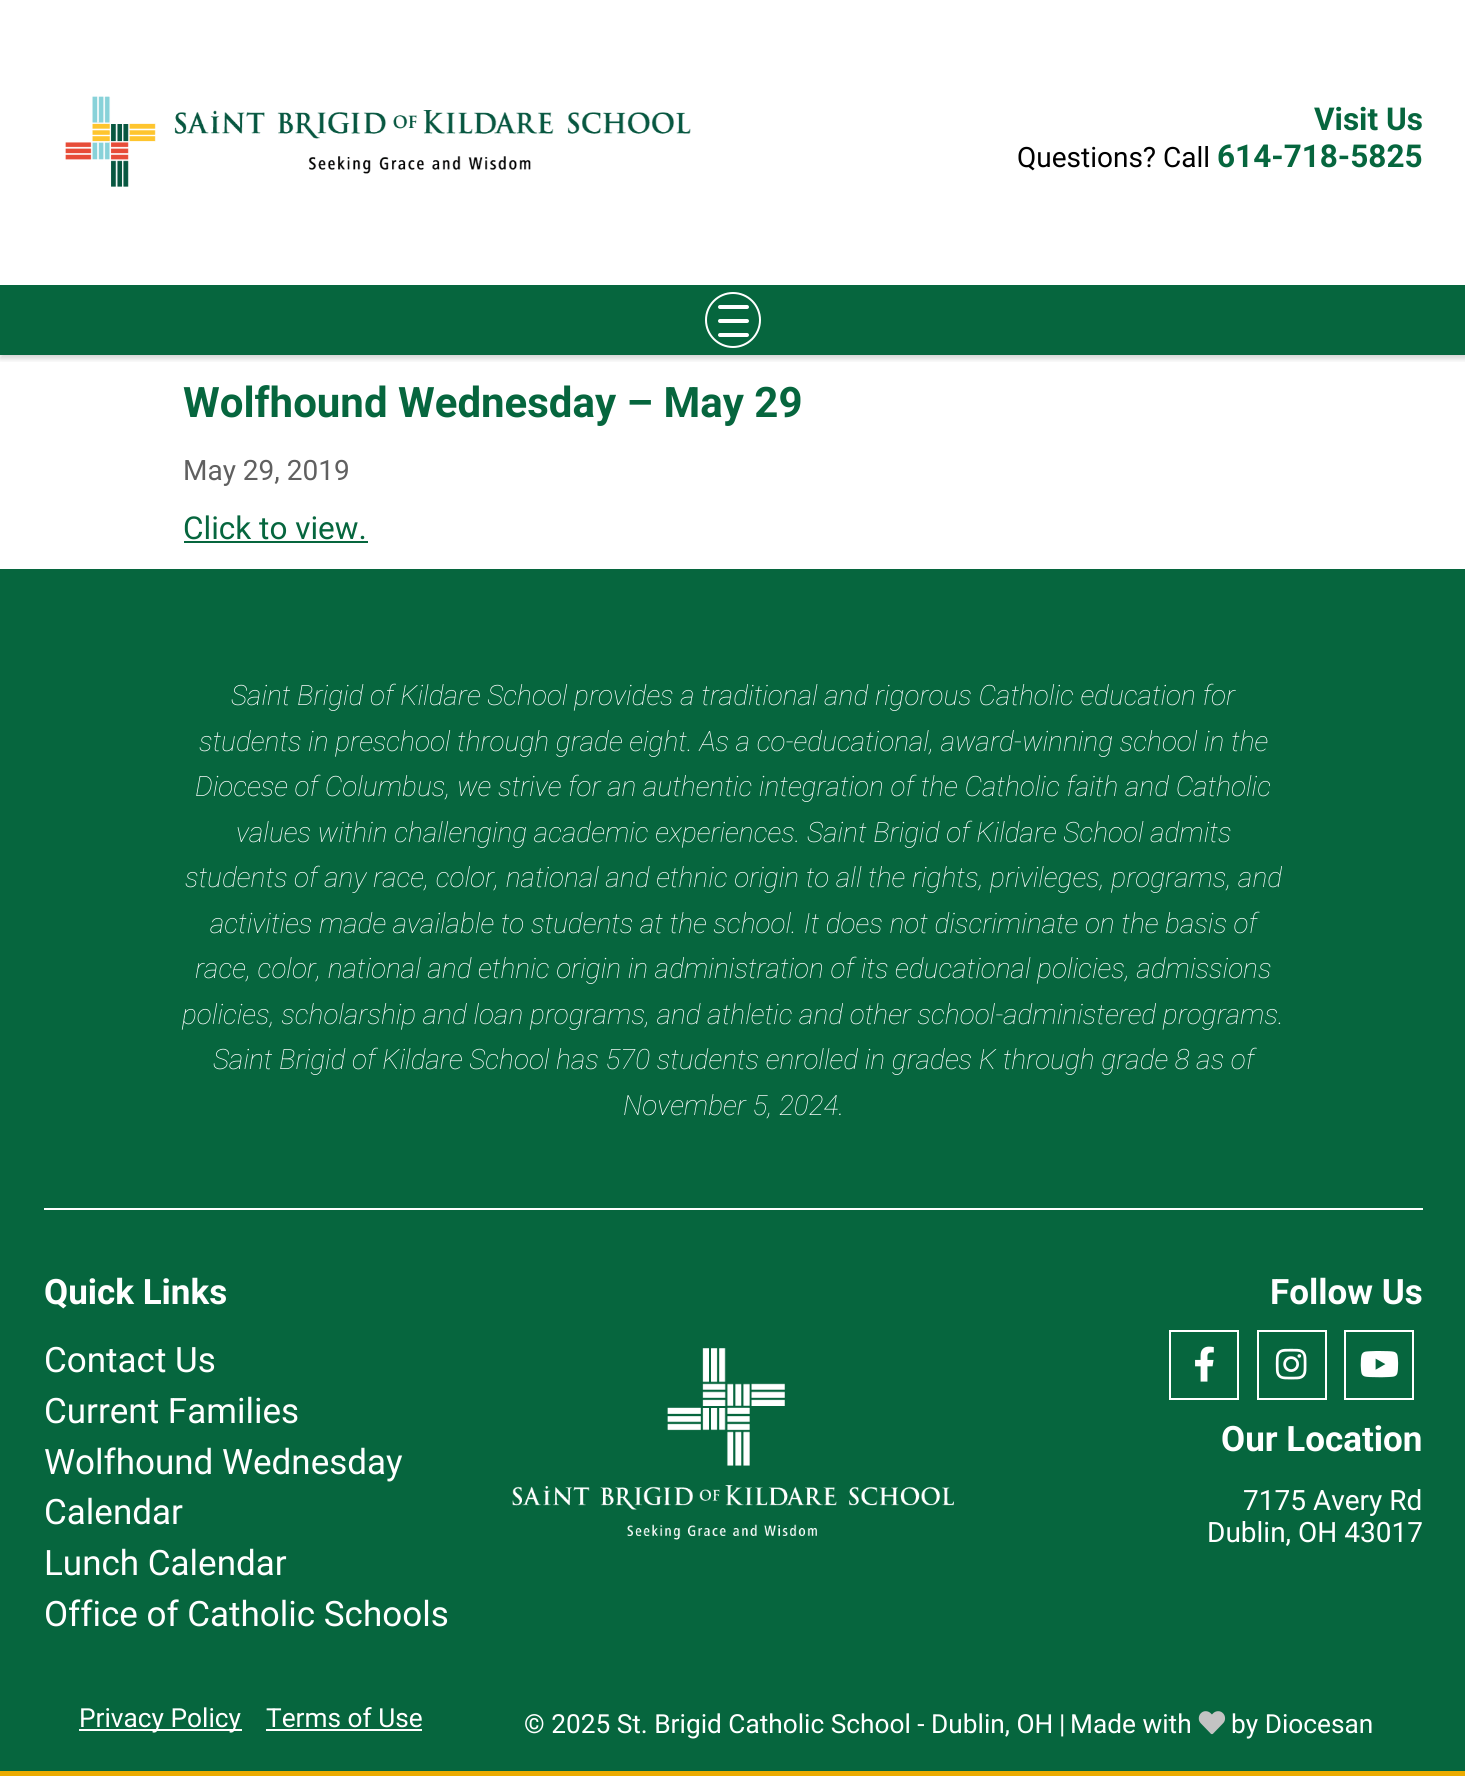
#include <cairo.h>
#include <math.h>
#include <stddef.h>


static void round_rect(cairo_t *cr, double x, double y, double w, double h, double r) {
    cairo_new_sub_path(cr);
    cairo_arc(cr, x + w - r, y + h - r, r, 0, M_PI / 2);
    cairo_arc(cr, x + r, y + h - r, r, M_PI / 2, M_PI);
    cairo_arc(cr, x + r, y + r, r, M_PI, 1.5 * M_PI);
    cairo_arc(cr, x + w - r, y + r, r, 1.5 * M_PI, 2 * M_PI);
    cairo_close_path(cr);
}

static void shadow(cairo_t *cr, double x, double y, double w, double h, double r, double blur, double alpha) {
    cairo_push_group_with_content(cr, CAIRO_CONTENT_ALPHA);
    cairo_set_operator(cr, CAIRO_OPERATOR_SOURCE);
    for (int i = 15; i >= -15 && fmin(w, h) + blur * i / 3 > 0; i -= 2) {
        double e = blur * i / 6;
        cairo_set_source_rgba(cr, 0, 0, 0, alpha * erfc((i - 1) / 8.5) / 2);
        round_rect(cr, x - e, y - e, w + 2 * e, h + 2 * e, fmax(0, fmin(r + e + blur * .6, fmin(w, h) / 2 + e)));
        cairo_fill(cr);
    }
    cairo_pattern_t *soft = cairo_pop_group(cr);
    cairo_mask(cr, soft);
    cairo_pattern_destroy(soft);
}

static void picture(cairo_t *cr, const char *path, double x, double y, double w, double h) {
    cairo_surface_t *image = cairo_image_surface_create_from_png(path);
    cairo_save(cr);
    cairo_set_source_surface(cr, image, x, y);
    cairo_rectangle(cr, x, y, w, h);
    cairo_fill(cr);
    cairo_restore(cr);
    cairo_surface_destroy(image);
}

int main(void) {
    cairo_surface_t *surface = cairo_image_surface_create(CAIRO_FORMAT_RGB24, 1465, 1776);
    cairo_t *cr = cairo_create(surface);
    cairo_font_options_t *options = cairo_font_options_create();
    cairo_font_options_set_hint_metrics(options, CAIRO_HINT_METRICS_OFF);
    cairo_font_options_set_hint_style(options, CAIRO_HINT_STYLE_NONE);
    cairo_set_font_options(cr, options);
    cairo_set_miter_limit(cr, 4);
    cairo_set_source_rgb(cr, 1, 1, 1);
    cairo_paint(cr);
    cairo_save(cr);
    cairo_rectangle(cr, 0, 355, 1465, 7);
    cairo_clip(cr);
    cairo_set_source_rgb(cr, 0, 0, 0);
    shadow(cr, 0, 4, 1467, 355, 0, 2.5, 0.16);
    cairo_restore(cr);
    picture(cr, "img1.png", 65, 96, 626, 91);
    cairo_select_font_face(cr, "Roboto", CAIRO_FONT_SLANT_NORMAL, CAIRO_FONT_WEIGHT_BOLD);
    cairo_set_font_size(cr, 31.5);
    cairo_set_source_rgb(cr, 0.027, 0.4, 0.243);
    cairo_move_to(cr, 1314, 130);
    cairo_show_text(cr, "Visit Us");
    cairo_select_font_face(cr, "Roboto", CAIRO_FONT_SLANT_NORMAL, CAIRO_FONT_WEIGHT_NORMAL);
    cairo_set_font_size(cr, 28);
    cairo_set_source_rgb(cr, 0, 0, 0);
    cairo_move_to(cr, 1017, 167);
    cairo_show_text(cr, "Questions? Call");
    cairo_select_font_face(cr, "Roboto", CAIRO_FONT_SLANT_NORMAL, CAIRO_FONT_WEIGHT_BOLD);
    cairo_set_font_size(cr, 31.5);
    cairo_set_source_rgb(cr, 0.027, 0.4, 0.243);
    cairo_move_to(cr, 1217, 167);
    cairo_show_text(cr, "614-718-5825");
    cairo_rectangle(cr, 0, 285, 1465, 70);
    cairo_fill(cr);
    cairo_arc(cr, 733, 320, 27, 0, 2 * M_PI);
    cairo_set_source_rgb(cr, 1, 1, 1);
    cairo_stroke(cr);
    round_rect(cr, 718, 305, 31, 4, 2);
    cairo_fill(cr);
    round_rect(cr, 718, 319, 31, 4, 2);
    cairo_fill(cr);
    round_rect(cr, 718, 333, 31, 4, 2);
    cairo_fill(cr);
    cairo_set_font_size(cr, 42);
    cairo_set_source_rgb(cr, 0.027, 0.4, 0.243);
    cairo_move_to(cr, 183, 417);
    cairo_show_text(cr, "Wolfhound Wednesday – May 29");
    cairo_select_font_face(cr, "Roboto", CAIRO_FONT_SLANT_NORMAL, CAIRO_FONT_WEIGHT_NORMAL);
    cairo_set_font_size(cr, 28);
    cairo_set_source_rgb(cr, 0.376, 0.376, 0.376);
    cairo_move_to(cr, 183, 480);
    cairo_show_text(cr, "May 29, 2019");
    cairo_set_font_size(cr, 31.5);
    cairo_set_source_rgb(cr, 0.027, 0.4, 0.243);
    cairo_move_to(cr, 183, 539);
    cairo_show_text(cr, "Click to view.");
    cairo_rectangle(cr, 184, 541, 184, 2);
    cairo_fill(cr);
    cairo_rectangle(cr, 0, 569, 1465, 1202);
    cairo_fill(cr);
    cairo_set_source_rgb(cr, 0.918, 0.671, 0);
    cairo_rectangle(cr, 0, 1771, 1465, 5);
    cairo_fill(cr);
    cairo_set_source_rgb(cr, 1, 1, 1);
    cairo_rectangle(cr, 44, 1208, 1379, 2);
    cairo_fill(cr);
    cairo_select_font_face(cr, "Roboto Thin", CAIRO_FONT_SLANT_ITALIC, CAIRO_FONT_WEIGHT_NORMAL);
    cairo_set_font_size(cr, 28);
    cairo_move_to(cr, 231, 705);
    cairo_show_text(cr, "Saint Brigid of Kildare School provides a traditional and rigorous Catholic education for");
    cairo_move_to(cr, 199, 751);
    cairo_show_text(cr, "students in preschool through grade eight. As a co-educational, award-winning school in the");
    cairo_move_to(cr, 195, 796);
    cairo_show_text(cr, "Diocese of Columbus, we strive for an authentic integration of the Catholic faith and Catholic");
    cairo_move_to(cr, 236, 842);
    cairo_show_text(cr, "values within challenging academic experiences. Saint Brigid of Kildare School admits");
    cairo_move_to(cr, 185, 887);
    cairo_show_text(cr, "students of any race, color, national and ethnic origin to all the rights, privileges, programs, and");
    cairo_move_to(cr, 210, 933);
    cairo_show_text(cr, "activities made available to students at the school. It does not discriminate on the basis of");
    cairo_move_to(cr, 195, 978);
    cairo_show_text(cr, "race, color, national and ethnic origin in administration of its educational policies, admissions");
    cairo_move_to(cr, 182, 1024);
    cairo_show_text(cr, "policies, scholarship and loan programs, and athletic and other school-administered programs.");
    cairo_move_to(cr, 213, 1069);
    cairo_show_text(cr, "Saint Brigid of Kildare School has 570 students enrolled in grades K through grade 8 as of");
    cairo_move_to(cr, 623, 1115);
    cairo_show_text(cr, "November 5, 2024.");
    cairo_select_font_face(cr, "Roboto", CAIRO_FONT_SLANT_NORMAL, CAIRO_FONT_WEIGHT_BOLD);
    cairo_set_font_size(cr, 35);
    cairo_move_to(cr, 44, 1304);
    cairo_show_text(cr, "Quick Links");
    cairo_select_font_face(cr, "Roboto", CAIRO_FONT_SLANT_NORMAL, CAIRO_FONT_WEIGHT_NORMAL);
    cairo_move_to(cr, 44, 1372);
    cairo_show_text(cr, "Contact Us");
    cairo_move_to(cr, 44, 1423);
    cairo_show_text(cr, "Current Families");
    cairo_move_to(cr, 44, 1474);
    cairo_show_text(cr, "Wolfhound Wednesday");
    cairo_move_to(cr, 44, 1524);
    cairo_show_text(cr, "Calendar");
    cairo_move_to(cr, 44, 1575);
    cairo_show_text(cr, "Lunch Calendar");
    cairo_move_to(cr, 44, 1626);
    cairo_show_text(cr, "Office of Catholic Schools");
    picture(cr, "img2.png", 512, 1348, 442, 192);
    cairo_select_font_face(cr, "Roboto", CAIRO_FONT_SLANT_NORMAL, CAIRO_FONT_WEIGHT_BOLD);
    cairo_move_to(cr, 1270, 1304);
    cairo_show_text(cr, "Follow Us");
    cairo_rectangle(cr, 1170, 1331, 68, 68);
    cairo_stroke(cr);
    picture(cr, "img3.png", 1195, 1346, 19, 36);
    cairo_rectangle(cr, 1258, 1331, 68, 68);
    cairo_stroke(cr);
    picture(cr, "img4.png", 1275, 1348, 32, 32);
    cairo_rectangle(cr, 1345, 1331, 68, 68);
    cairo_stroke(cr);
    picture(cr, "img5.png", 1360, 1351, 39, 27);
    cairo_move_to(cr, 1221, 1451);
    cairo_show_text(cr, "Our Location");
    cairo_select_font_face(cr, "Roboto", CAIRO_FONT_SLANT_NORMAL, CAIRO_FONT_WEIGHT_NORMAL);
    cairo_set_font_size(cr, 28);
    cairo_move_to(cr, 1243, 1510);
    cairo_show_text(cr, "7175 Avery Rd");
    cairo_move_to(cr, 1207, 1542);
    cairo_show_text(cr, "Dublin, OH 43017");
    cairo_rectangle(cr, 79, 1729, 163, 2);
    cairo_fill(cr);
    cairo_set_font_size(cr, 26.25);
    cairo_move_to(cr, 79, 1727);
    cairo_show_text(cr, "Privacy Policy");
    cairo_move_to(cr, 266, 1727);
    cairo_show_text(cr, "Terms of Use");
    cairo_rectangle(cr, 266, 1729, 156, 2);
    cairo_fill(cr);
    cairo_move_to(cr, 524, 1733);
    cairo_show_text(cr, "© 2025 St. Brigid Catholic School - Dublin, OH");
    cairo_move_to(cr, 1059, 1733);
    cairo_show_text(cr, "|");
    cairo_move_to(cr, 1070, 1733);
    cairo_show_text(cr, "Made with");
    picture(cr, "img6.png", 1198, 1711, 28, 24);
    cairo_move_to(cr, 1231, 1733);
    cairo_show_text(cr, "by Diocesan");
    cairo_surface_write_to_png(surface, "page.png");
    cairo_font_options_destroy(options);
    cairo_destroy(cr);
    cairo_surface_destroy(surface);
    return 0;
}
